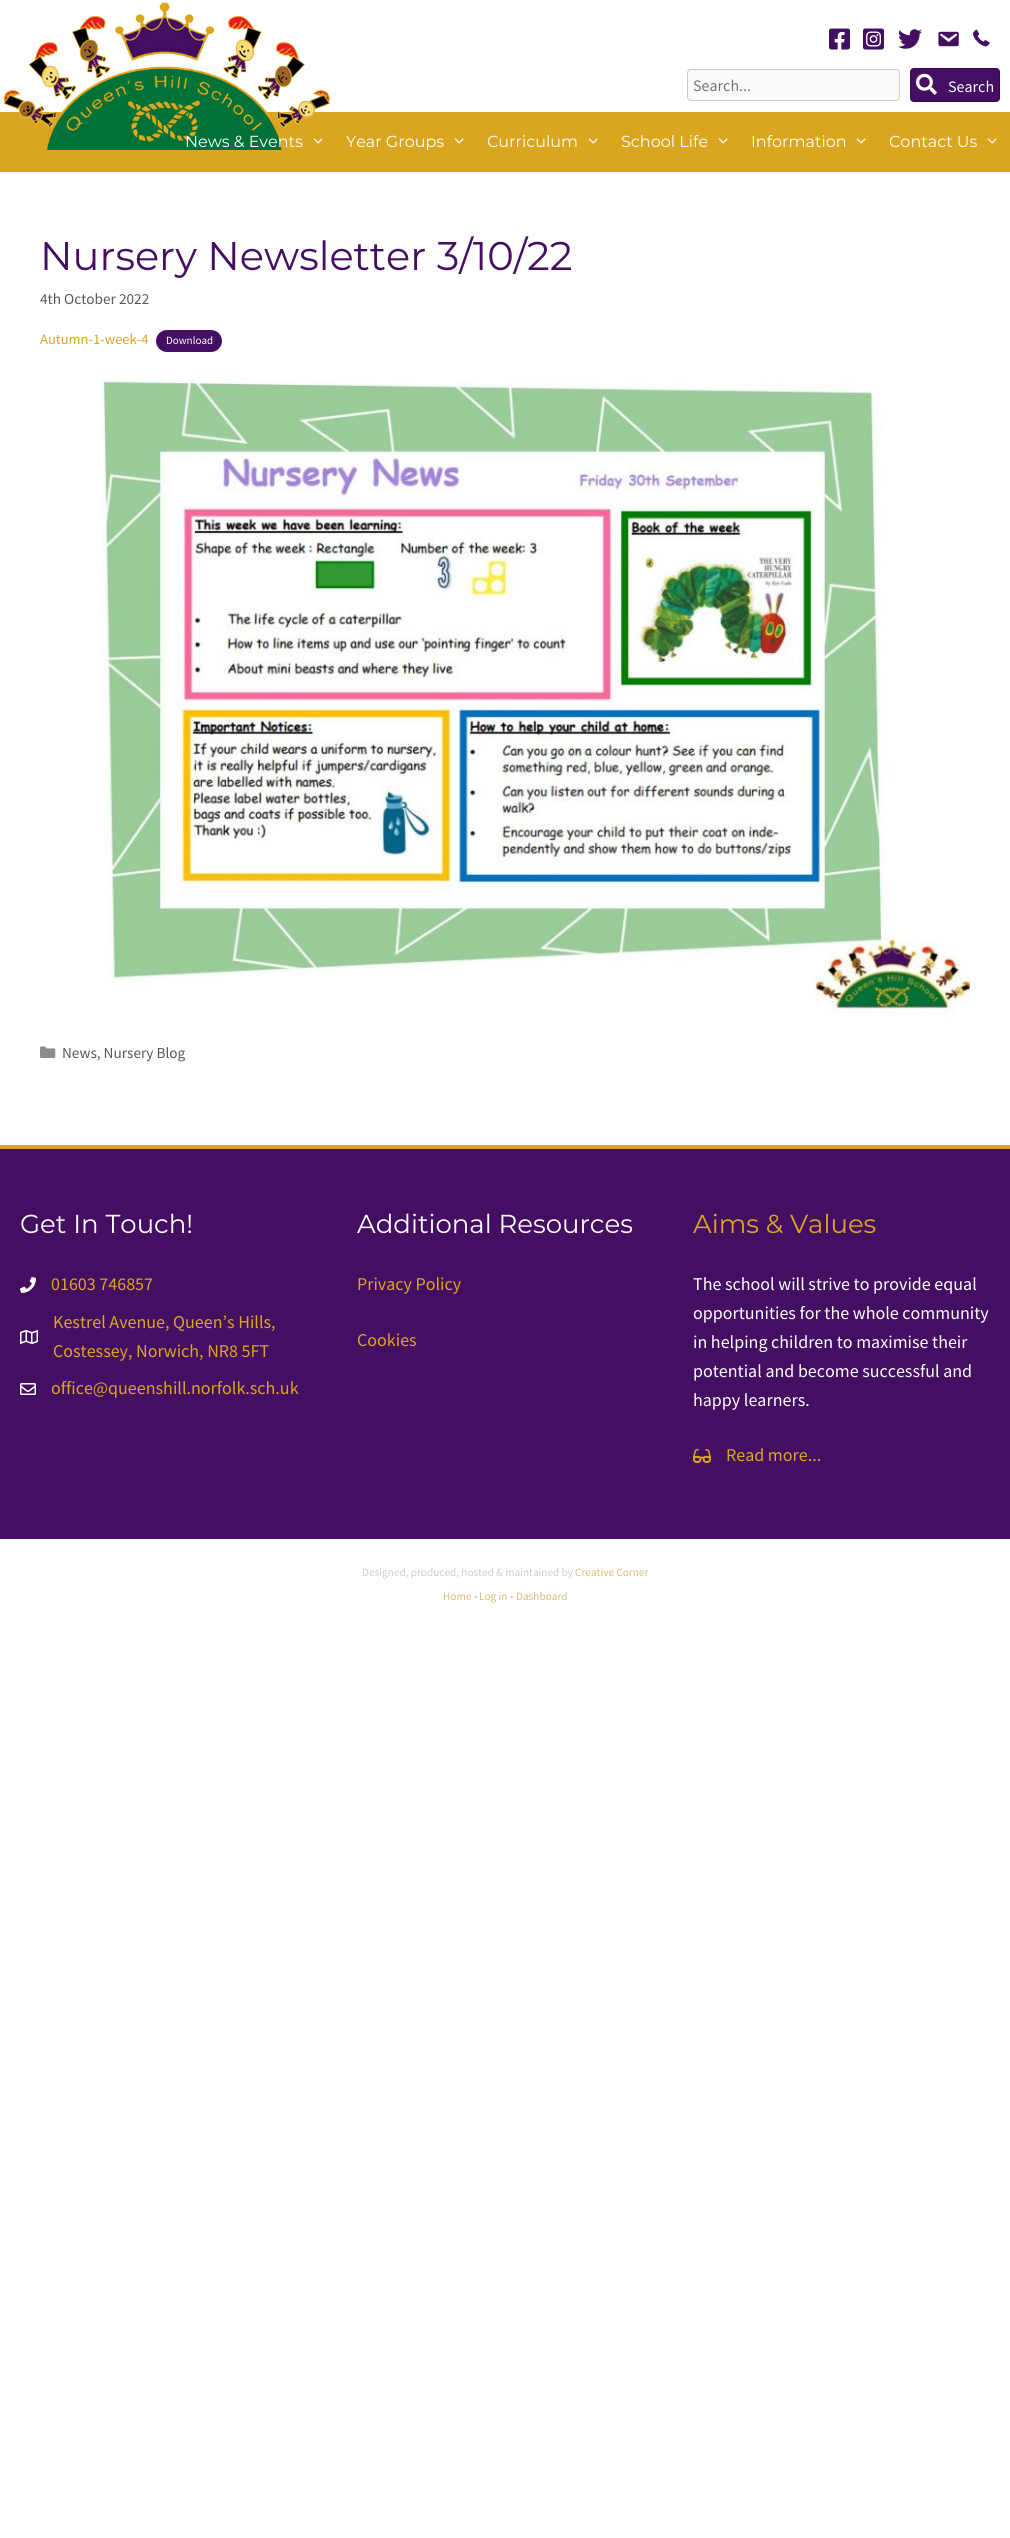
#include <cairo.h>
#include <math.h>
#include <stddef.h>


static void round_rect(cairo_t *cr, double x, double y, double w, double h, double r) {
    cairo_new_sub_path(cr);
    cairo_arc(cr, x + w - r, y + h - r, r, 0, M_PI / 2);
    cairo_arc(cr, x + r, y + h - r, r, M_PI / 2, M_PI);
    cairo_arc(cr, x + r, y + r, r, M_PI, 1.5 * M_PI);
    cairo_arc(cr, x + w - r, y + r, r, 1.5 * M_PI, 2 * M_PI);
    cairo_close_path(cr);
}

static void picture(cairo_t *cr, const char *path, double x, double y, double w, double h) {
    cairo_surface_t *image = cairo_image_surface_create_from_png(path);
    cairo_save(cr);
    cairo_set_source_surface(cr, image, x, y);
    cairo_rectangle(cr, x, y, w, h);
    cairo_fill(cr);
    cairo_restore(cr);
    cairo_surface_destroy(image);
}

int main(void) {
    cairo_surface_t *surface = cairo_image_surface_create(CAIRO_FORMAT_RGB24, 1010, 2538);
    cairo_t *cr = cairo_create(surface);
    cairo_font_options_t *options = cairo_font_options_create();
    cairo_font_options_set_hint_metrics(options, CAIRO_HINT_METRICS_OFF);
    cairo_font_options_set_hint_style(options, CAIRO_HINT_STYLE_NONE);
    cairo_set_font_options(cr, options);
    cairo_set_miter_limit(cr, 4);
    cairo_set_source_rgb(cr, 1, 1, 1);
    cairo_paint(cr);
    picture(cr, "img1.png", 829, 28, 21, 22);
    picture(cr, "img2.png", 863, 28, 21, 22);
    picture(cr, "img3.png", 898, 29, 24, 20);
    picture(cr, "img4.png", 938, 31, 21, 16);
    picture(cr, "img5.png", 973, 29, 17, 18);
    cairo_set_source_rgb(cr, 0.98, 0.98, 0.98);
    round_rect(cr, 687.5, 69.5, 212, 31, 3.5);
    cairo_fill_preserve(cr);
    cairo_set_source_rgb(cr, 0.8, 0.8, 0.8);
    cairo_set_line_width(cr, 1);
    cairo_stroke(cr);
    cairo_select_font_face(cr, "Source Sans Pro", CAIRO_FONT_SLANT_NORMAL, CAIRO_FONT_WEIGHT_NORMAL);
    cairo_set_font_size(cr, 16);
    cairo_set_source_rgb(cr, 0.459, 0.459, 0.459);
    cairo_move_to(cr, 693, 91);
    cairo_show_text(cr, "Search...");
    cairo_set_source_rgb(cr, 0.267, 0.055, 0.384);
    round_rect(cr, 910.5, 68.5, 89, 33, 3.5);
    cairo_fill_preserve(cr);
    cairo_set_source_rgb(cr, 0.22, 0.008, 0.337);
    cairo_stroke(cr);
    picture(cr, "img6.png", 916, 73, 21, 22);
    cairo_set_source_rgb(cr, 1, 1, 1);
    cairo_move_to(cr, 948, 92);
    cairo_show_text(cr, "Search");
    cairo_set_source_rgb(cr, 0.855, 0.647, 0.122);
    cairo_rectangle(cr, 0, 112, 1010, 60);
    cairo_fill(cr);
    picture(cr, "img7.png", 3, 2, 327, 148);
    cairo_select_font_face(cr, "Montserrat", CAIRO_FONT_SLANT_NORMAL, CAIRO_FONT_WEIGHT_NORMAL);
    cairo_set_source_rgb(cr, 1, 1, 1);
    cairo_move_to(cr, 185, 147);
    cairo_show_text(cr, "News & Events");
    picture(cr, "img8.png", 313, 138, 10, 6);
    cairo_move_to(cr, 346, 147);
    cairo_show_text(cr, "Year Groups");
    picture(cr, "img8.png", 454, 138, 10, 6);
    cairo_move_to(cr, 487, 147);
    cairo_show_text(cr, "Curriculum");
    picture(cr, "img8.png", 588, 138, 10, 6);
    cairo_move_to(cr, 621, 147);
    cairo_show_text(cr, "School Life");
    picture(cr, "img8.png", 718, 138, 10, 6);
    cairo_move_to(cr, 751, 147);
    cairo_show_text(cr, "Information");
    picture(cr, "img8.png", 856, 138, 10, 6);
    cairo_move_to(cr, 889, 147);
    cairo_show_text(cr, "Contact Us");
    picture(cr, "img8.png", 987, 138, 10, 6);
    cairo_set_font_size(cr, 40);
    cairo_set_source_rgb(cr, 0.267, 0.055, 0.384);
    cairo_move_to(cr, 40, 270);
    cairo_show_text(cr, "Nursery Newsletter 3/10/22");
    cairo_select_font_face(cr, "Source Sans Pro", CAIRO_FONT_SLANT_NORMAL, CAIRO_FONT_WEIGHT_NORMAL);
    cairo_set_font_size(cr, 15.25);
    cairo_set_source_rgb(cr, 0.349, 0.349, 0.349);
    cairo_move_to(cr, 40, 304);
    cairo_show_text(cr, "4th October 2022");
    cairo_set_font_size(cr, 14.5);
    cairo_set_source_rgb(cr, 0.855, 0.647, 0.125);
    cairo_move_to(cr, 40, 344);
    cairo_show_text(cr, "Autumn-1-week-4");
    cairo_set_source_rgb(cr, 0.267, 0.055, 0.384);
    round_rect(cr, 156, 330, 66, 22, 11);
    cairo_fill(cr);
    cairo_set_font_size(cr, 11);
    cairo_set_source_rgb(cr, 1, 1, 1);
    cairo_move_to(cr, 166, 344);
    cairo_show_text(cr, "Download");
    picture(cr, "img9.png", 101, 377, 869, 642);
    picture(cr, "img10.png", 40, 1046, 16, 12);
    cairo_set_font_size(cr, 15.25);
    cairo_set_source_rgb(cr, 0.349, 0.349, 0.349);
    cairo_move_to(cr, 62, 1058);
    cairo_show_text(cr, "News, Nursery Blog");
    cairo_set_source_rgb(cr, 0.267, 0.055, 0.384);
    cairo_rectangle(cr, 0, 1149, 1010, 390);
    cairo_fill(cr);
    cairo_set_source_rgb(cr, 0.855, 0.647, 0.125);
    cairo_rectangle(cr, 0, 1145, 1010, 4);
    cairo_fill(cr);
    cairo_select_font_face(cr, "Montserrat", CAIRO_FONT_SLANT_NORMAL, CAIRO_FONT_WEIGHT_NORMAL);
    cairo_set_font_size(cr, 26);
    cairo_set_source_rgb(cr, 1, 1, 1);
    cairo_move_to(cr, 20, 1233);
    cairo_show_text(cr, "Get In Touch!");
    picture(cr, "img11.png", 20, 1277, 16, 16);
    cairo_select_font_face(cr, "Source Sans Pro", CAIRO_FONT_SLANT_NORMAL, CAIRO_FONT_WEIGHT_NORMAL);
    cairo_set_font_size(cr, 18);
    cairo_set_source_rgb(cr, 0.855, 0.647, 0.125);
    cairo_move_to(cr, 51, 1290);
    cairo_show_text(cr, "01603 746857");
    picture(cr, "img12.png", 20, 1330, 18, 14);
    cairo_move_to(cr, 53, 1328);
    cairo_show_text(cr, "Kestrel Avenue, Queen’s Hills,");
    cairo_move_to(cr, 53, 1357);
    cairo_show_text(cr, "Costessey, Norwich, NR8 5FT");
    picture(cr, "img13.png", 20, 1383, 16, 12);
    cairo_move_to(cr, 51, 1394);
    cairo_show_text(cr, "office@queenshill.norfolk.sch.uk");
    cairo_select_font_face(cr, "Montserrat", CAIRO_FONT_SLANT_NORMAL, CAIRO_FONT_WEIGHT_NORMAL);
    cairo_set_font_size(cr, 26);
    cairo_set_source_rgb(cr, 1, 1, 1);
    cairo_move_to(cr, 357, 1233);
    cairo_show_text(cr, "Additional Resources");
    cairo_select_font_face(cr, "Source Sans Pro", CAIRO_FONT_SLANT_NORMAL, CAIRO_FONT_WEIGHT_NORMAL);
    cairo_set_font_size(cr, 18);
    cairo_set_source_rgb(cr, 0.855, 0.647, 0.125);
    cairo_move_to(cr, 357, 1290);
    cairo_show_text(cr, "Privacy Policy");
    cairo_move_to(cr, 357, 1346);
    cairo_show_text(cr, "Cookies");
    cairo_select_font_face(cr, "Montserrat", CAIRO_FONT_SLANT_NORMAL, CAIRO_FONT_WEIGHT_NORMAL);
    cairo_set_font_size(cr, 26);
    cairo_move_to(cr, 693, 1233);
    cairo_show_text(cr, "Aims & Values");
    cairo_select_font_face(cr, "Source Sans Pro", CAIRO_FONT_SLANT_NORMAL, CAIRO_FONT_WEIGHT_NORMAL);
    cairo_set_font_size(cr, 18);
    cairo_set_source_rgb(cr, 1, 1, 1);
    cairo_move_to(cr, 693, 1290);
    cairo_show_text(cr, "The school will strive to provide equal");
    cairo_move_to(cr, 693, 1319);
    cairo_show_text(cr, "opportunities for the whole community");
    cairo_move_to(cr, 693, 1348);
    cairo_show_text(cr, "in helping children to maximise their");
    cairo_move_to(cr, 693, 1377);
    cairo_show_text(cr, "potential and become successful and");
    cairo_move_to(cr, 693, 1406);
    cairo_show_text(cr, "happy learners.");
    picture(cr, "img14.png", 693, 1449, 18, 14);
    cairo_set_source_rgb(cr, 0.855, 0.647, 0.125);
    cairo_move_to(cr, 726, 1461);
    cairo_show_text(cr, "Read more...");
    cairo_set_font_size(cr, 11.25);
    cairo_set_source_rgb(cr, 0.8, 0.8, 0.8);
    cairo_move_to(cr, 362, 1576);
    cairo_show_text(cr, "Designed, produced, hosted & maintained by");
    cairo_set_source_rgb(cr, 0.847, 0.741, 0.475);
    cairo_move_to(cr, 575, 1576);
    cairo_show_text(cr, "Creative Corner");
    cairo_move_to(cr, 443, 1600);
    cairo_show_text(cr, "Home");
    cairo_set_source_rgb(cr, 0.8, 0.8, 0.8);
    cairo_move_to(cr, 474, 1600);
    cairo_show_text(cr, "•");
    cairo_set_source_rgb(cr, 0.847, 0.741, 0.475);
    cairo_move_to(cr, 479, 1600);
    cairo_show_text(cr, "Log in");
    cairo_set_source_rgb(cr, 0.8, 0.8, 0.8);
    cairo_move_to(cr, 510, 1600);
    cairo_show_text(cr, "•");
    cairo_set_source_rgb(cr, 0.847, 0.741, 0.475);
    cairo_move_to(cr, 516, 1600);
    cairo_show_text(cr, "Dashboard");
    cairo_surface_write_to_png(surface, "page.png");
    cairo_font_options_destroy(options);
    cairo_destroy(cr);
    cairo_surface_destroy(surface);
    return 0;
}
